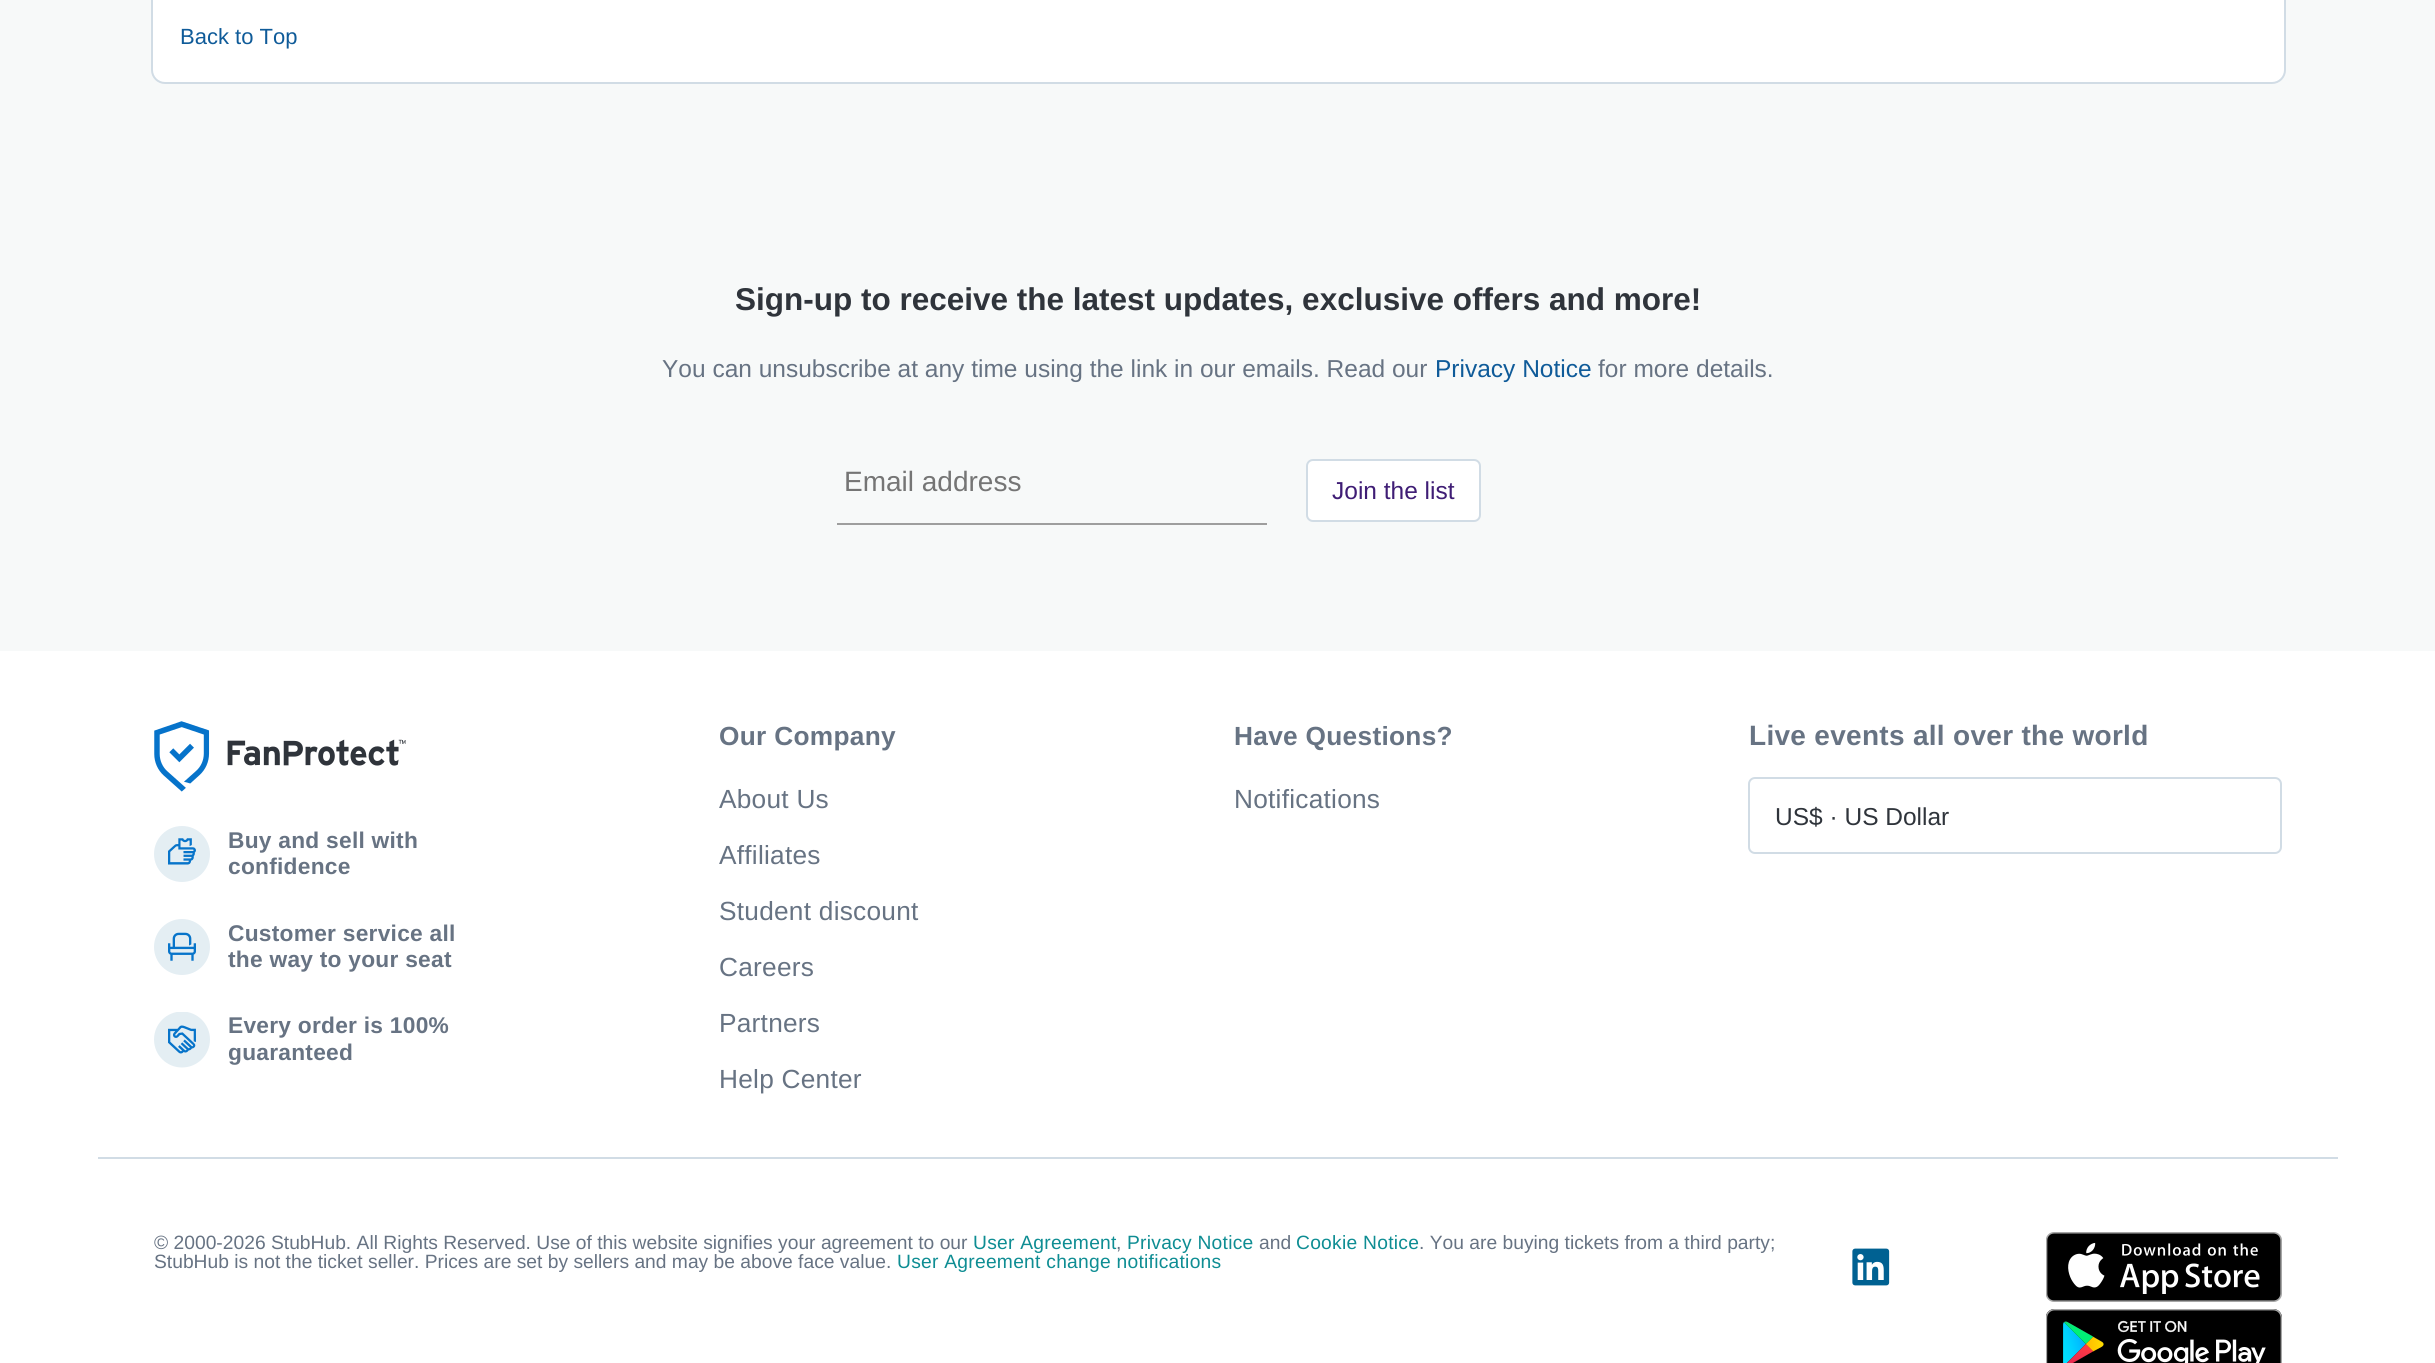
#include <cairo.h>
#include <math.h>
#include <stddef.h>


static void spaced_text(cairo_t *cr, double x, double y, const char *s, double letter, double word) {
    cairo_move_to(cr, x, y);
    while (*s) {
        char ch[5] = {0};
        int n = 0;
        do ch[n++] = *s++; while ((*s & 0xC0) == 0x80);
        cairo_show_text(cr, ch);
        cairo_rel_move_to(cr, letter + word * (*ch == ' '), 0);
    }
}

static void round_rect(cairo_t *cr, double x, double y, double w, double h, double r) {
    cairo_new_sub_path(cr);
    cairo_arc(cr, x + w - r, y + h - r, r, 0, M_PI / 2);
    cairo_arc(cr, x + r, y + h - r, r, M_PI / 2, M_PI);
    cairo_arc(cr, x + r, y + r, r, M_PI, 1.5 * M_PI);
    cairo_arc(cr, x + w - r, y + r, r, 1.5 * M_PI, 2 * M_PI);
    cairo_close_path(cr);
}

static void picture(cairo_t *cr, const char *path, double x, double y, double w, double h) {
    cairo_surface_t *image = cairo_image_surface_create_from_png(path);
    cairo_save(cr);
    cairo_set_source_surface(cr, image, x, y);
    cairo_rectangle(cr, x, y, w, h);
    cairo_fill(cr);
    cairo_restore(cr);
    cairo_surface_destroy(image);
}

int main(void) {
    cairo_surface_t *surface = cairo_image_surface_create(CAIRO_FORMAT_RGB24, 2435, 1363);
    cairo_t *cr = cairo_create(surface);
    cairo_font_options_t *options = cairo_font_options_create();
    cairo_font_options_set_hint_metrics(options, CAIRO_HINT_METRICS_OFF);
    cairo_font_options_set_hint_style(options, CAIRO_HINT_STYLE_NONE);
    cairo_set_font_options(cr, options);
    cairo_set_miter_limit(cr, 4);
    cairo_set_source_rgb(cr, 0.965, 0.973, 0.976);
    cairo_paint(cr);
    cairo_set_source_rgb(cr, 1, 1, 1);
    round_rect(cr, 152, -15, 2133, 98, 13);
    cairo_fill_preserve(cr);
    cairo_set_source_rgb(cr, 0.82, 0.863, 0.898);
    cairo_stroke(cr);
    cairo_select_font_face(cr, "Liberation Sans", CAIRO_FONT_SLANT_NORMAL, CAIRO_FONT_WEIGHT_NORMAL);
    cairo_set_font_size(cr, 22);
    cairo_set_source_rgb(cr, 0.059, 0.357, 0.6);
    cairo_move_to(cr, 180, 44);
    cairo_show_text(cr, "Back to Top");
    cairo_select_font_face(cr, "Liberation Sans", CAIRO_FONT_SLANT_NORMAL, CAIRO_FONT_WEIGHT_BOLD);
    cairo_set_font_size(cr, 31.5);
    cairo_set_source_rgb(cr, 0.184, 0.204, 0.231);
    cairo_move_to(cr, 735, 310);
    cairo_show_text(cr, "Sign-up to receive the latest updates, exclusive offers and more!");
    cairo_select_font_face(cr, "Liberation Sans", CAIRO_FONT_SLANT_NORMAL, CAIRO_FONT_WEIGHT_NORMAL);
    cairo_set_font_size(cr, 24.5);
    cairo_set_source_rgb(cr, 0.404, 0.451, 0.514);
    cairo_move_to(cr, 662, 377);
    cairo_show_text(cr, "You can unsubscribe at any time using the link in our emails. Read our");
    cairo_set_source_rgb(cr, 0.059, 0.357, 0.6);
    cairo_move_to(cr, 1435, 377);
    cairo_show_text(cr, "Privacy Notice");
    cairo_set_source_rgb(cr, 0.404, 0.451, 0.514);
    cairo_move_to(cr, 1598, 377);
    cairo_show_text(cr, "for more details.");
    cairo_set_source_rgb(cr, 0.62, 0.62, 0.62);
    cairo_rectangle(cr, 837, 523, 430, 2);
    cairo_fill(cr);
    cairo_set_font_size(cr, 28);
    cairo_set_source_rgb(cr, 0.459, 0.459, 0.459);
    cairo_move_to(cr, 844, 491);
    cairo_show_text(cr, "Email address");
    cairo_set_source_rgb(cr, 1, 1, 1);
    round_rect(cr, 1307, 460, 173, 61, 6);
    cairo_fill_preserve(cr);
    cairo_set_source_rgb(cr, 0.82, 0.863, 0.898);
    cairo_stroke(cr);
    cairo_set_font_size(cr, 24.5);
    cairo_set_source_rgb(cr, 0.247, 0.114, 0.459);
    cairo_move_to(cr, 1332, 499);
    cairo_show_text(cr, "Join the list");
    cairo_set_source_rgb(cr, 1, 1, 1);
    cairo_rectangle(cr, 0, 651, 2435, 712);
    cairo_fill(cr);
    cairo_select_font_face(cr, "Liberation Sans", CAIRO_FONT_SLANT_NORMAL, CAIRO_FONT_WEIGHT_BOLD);
    cairo_set_font_size(cr, 26.25);
    cairo_set_source_rgb(cr, 0.404, 0.451, 0.514);
    spaced_text(cr, 719, 745, "Our Company", 0.3, 0);
    cairo_select_font_face(cr, "Liberation Sans", CAIRO_FONT_SLANT_NORMAL, CAIRO_FONT_WEIGHT_NORMAL);
    spaced_text(cr, 719, 808, "About Us", 0.25, 0);
    spaced_text(cr, 719, 864, "Affiliates", 0.25, 0);
    spaced_text(cr, 719, 920, "Student discount", 0.25, 0);
    spaced_text(cr, 719, 976, "Careers", 0.25, 0);
    spaced_text(cr, 719, 1032, "Partners", 0.25, 0);
    spaced_text(cr, 719, 1088, "Help Center", 0.25, 0);
    cairo_select_font_face(cr, "Liberation Sans", CAIRO_FONT_SLANT_NORMAL, CAIRO_FONT_WEIGHT_BOLD);
    spaced_text(cr, 1234, 745, "Have Questions?", 0.3, 0);
    cairo_select_font_face(cr, "Liberation Sans", CAIRO_FONT_SLANT_NORMAL, CAIRO_FONT_WEIGHT_NORMAL);
    spaced_text(cr, 1234, 808, "Notifications", 0.25, 0);
    cairo_select_font_face(cr, "Liberation Sans", CAIRO_FONT_SLANT_NORMAL, CAIRO_FONT_WEIGHT_BOLD);
    cairo_set_font_size(cr, 28);
    spaced_text(cr, 1749, 745, "Live events all over the world", 0.3, 0);
    round_rect(cr, 1749, 778, 532, 75, 6);
    cairo_set_source_rgb(cr, 0.82, 0.863, 0.898);
    cairo_stroke(cr);
    cairo_select_font_face(cr, "Liberation Sans", CAIRO_FONT_SLANT_NORMAL, CAIRO_FONT_WEIGHT_NORMAL);
    cairo_set_font_size(cr, 24.5);
    cairo_set_source_rgb(cr, 0.184, 0.204, 0.231);
    cairo_move_to(cr, 1775, 825);
    cairo_show_text(cr, "US$ · US Dollar");
    picture(cr, "img1.png", 154, 721, 252, 71);
    picture(cr, "img2.png", 154, 826, 56, 56);
    cairo_select_font_face(cr, "Liberation Sans", CAIRO_FONT_SLANT_NORMAL, CAIRO_FONT_WEIGHT_BOLD);
    cairo_set_font_size(cr, 22.75);
    cairo_set_source_rgb(cr, 0.404, 0.451, 0.514);
    spaced_text(cr, 228, 848, "Buy and sell with", 0.25, 0);
    spaced_text(cr, 228, 874, "confidence", 0.25, 0);
    picture(cr, "img3.png", 154, 919, 56, 56);
    spaced_text(cr, 228, 941, "Customer service all", 0.25, 0);
    spaced_text(cr, 228, 967, "the way to your seat", 0.25, 0);
    picture(cr, "img4.png", 154, 1012, 56, 56);
    spaced_text(cr, 228, 1033, "Every order is 100%", 0.25, 0);
    spaced_text(cr, 228, 1060, "guaranteed", 0.25, 0);
    cairo_set_source_rgb(cr, 0.82, 0.863, 0.898);
    cairo_rectangle(cr, 98, 1157, 2240, 2);
    cairo_fill(cr);
    cairo_select_font_face(cr, "Liberation Sans", CAIRO_FONT_SLANT_NORMAL, CAIRO_FONT_WEIGHT_NORMAL);
    cairo_set_font_size(cr, 19.25);
    cairo_set_source_rgb(cr, 0.404, 0.451, 0.514);
    cairo_move_to(cr, 154, 1249);
    cairo_show_text(cr, "© 2000-2026 StubHub. All Rights Reserved. Use of this website signifies your agreement to our");
    cairo_set_source_rgb(cr, 0.055, 0.553, 0.576);
    spaced_text(cr, 973, 1249, "User Agreement", 0.25, 0);
    cairo_set_source_rgb(cr, 0.404, 0.451, 0.514);
    cairo_move_to(cr, 1116, 1249);
    cairo_show_text(cr, ",");
    cairo_set_source_rgb(cr, 0.055, 0.553, 0.576);
    spaced_text(cr, 1127, 1249, "Privacy Notice", 0.25, 0);
    cairo_set_source_rgb(cr, 0.404, 0.451, 0.514);
    cairo_move_to(cr, 1259, 1249);
    cairo_show_text(cr, "and");
    cairo_set_source_rgb(cr, 0.055, 0.553, 0.576);
    spaced_text(cr, 1296, 1249, "Cookie Notice", 0.25, 0);
    cairo_set_source_rgb(cr, 0.404, 0.451, 0.514);
    cairo_move_to(cr, 1419, 1249);
    cairo_show_text(cr, ". You are buying tickets from a third party;");
    cairo_move_to(cr, 154, 1268);
    cairo_show_text(cr, "StubHub is not the ticket seller. Prices are set by sellers and may be above face value.");
    cairo_set_source_rgb(cr, 0.055, 0.553, 0.576);
    spaced_text(cr, 897, 1268, "User Agreement change notifications", 0.25, 0);
    picture(cr, "img5.png", 1852, 1248, 38, 38);
    picture(cr, "img6.png", 2046, 1232, 236, 70);
    picture(cr, "img7.png", 2046, 1309, 236, 54);
    cairo_surface_write_to_png(surface, "page.png");
    cairo_font_options_destroy(options);
    cairo_destroy(cr);
    cairo_surface_destroy(surface);
    return 0;
}
